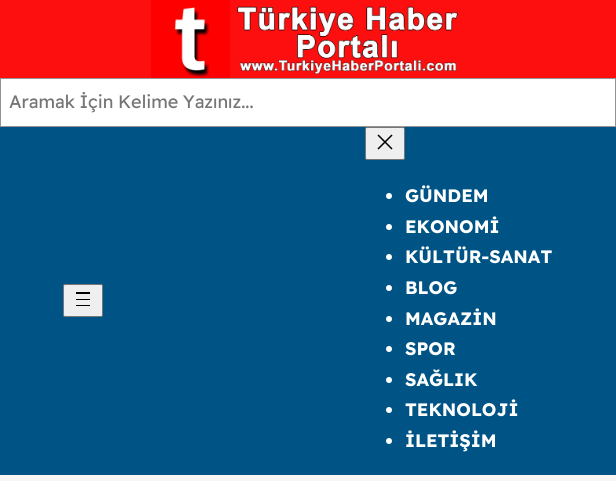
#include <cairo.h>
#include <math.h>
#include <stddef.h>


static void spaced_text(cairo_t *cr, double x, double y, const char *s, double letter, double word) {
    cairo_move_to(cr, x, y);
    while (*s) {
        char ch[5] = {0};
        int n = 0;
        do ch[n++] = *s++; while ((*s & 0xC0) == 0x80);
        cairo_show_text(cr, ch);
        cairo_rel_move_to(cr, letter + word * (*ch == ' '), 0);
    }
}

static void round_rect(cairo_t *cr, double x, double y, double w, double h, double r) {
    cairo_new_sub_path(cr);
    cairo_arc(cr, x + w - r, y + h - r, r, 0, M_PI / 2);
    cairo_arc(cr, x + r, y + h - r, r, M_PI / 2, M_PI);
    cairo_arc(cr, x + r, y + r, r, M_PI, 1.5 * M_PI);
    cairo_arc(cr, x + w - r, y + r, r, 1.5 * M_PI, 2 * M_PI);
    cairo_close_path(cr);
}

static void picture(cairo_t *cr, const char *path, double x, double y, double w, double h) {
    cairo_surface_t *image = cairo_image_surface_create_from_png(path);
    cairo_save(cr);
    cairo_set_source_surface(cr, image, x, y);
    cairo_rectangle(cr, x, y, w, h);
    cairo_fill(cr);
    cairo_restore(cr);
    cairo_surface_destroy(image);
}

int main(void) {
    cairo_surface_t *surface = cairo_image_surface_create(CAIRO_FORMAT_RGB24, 616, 481);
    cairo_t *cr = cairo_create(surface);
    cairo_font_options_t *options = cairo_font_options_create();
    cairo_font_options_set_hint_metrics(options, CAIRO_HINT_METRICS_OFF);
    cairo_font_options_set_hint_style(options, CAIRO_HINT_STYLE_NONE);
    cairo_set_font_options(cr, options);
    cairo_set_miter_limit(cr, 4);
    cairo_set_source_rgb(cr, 0.992, 0.059, 0.059);
    cairo_paint(cr);
    picture(cr, "img1.png", 151, 0, 307, 78);
    cairo_set_source_rgb(cr, 1, 1, 1);
    cairo_rectangle(cr, 0.5, 78.5, 615, 48);
    cairo_fill_preserve(cr);
    cairo_set_source_rgb(cr, 0.58, 0.58, 0.58);
    cairo_set_line_width(cr, 1);
    cairo_stroke(cr);
    cairo_select_font_face(cr, "Readex Pro", CAIRO_FONT_SLANT_NORMAL, CAIRO_FONT_WEIGHT_NORMAL);
    cairo_set_font_size(cr, 18);
    cairo_set_source_rgb(cr, 0.459, 0.459, 0.459);
    spaced_text(cr, 9, 108, "Aramak İçin Kelime Yazınız...", 0, -0.5);
    cairo_set_source_rgb(cr, 0, 0.329, 0.522);
    cairo_rectangle(cr, 0, 127, 616, 348);
    cairo_fill(cr);
    cairo_set_source_rgb(cr, 0.937, 0.937, 0.937);
    round_rect(cr, 63.5, 284.5, 39, 32, 1.5);
    cairo_fill_preserve(cr);
    cairo_set_source_rgb(cr, 0.463, 0.463, 0.463);
    cairo_stroke(cr);
    cairo_set_source_rgb(cr, 0, 0, 0);
    cairo_rectangle(cr, 76, 292, 14, 2);
    cairo_fill(cr);
    cairo_rectangle(cr, 76, 299, 14, 1);
    cairo_fill(cr);
    cairo_rectangle(cr, 76, 305, 14, 1);
    cairo_fill(cr);
    cairo_set_source_rgb(cr, 0.937, 0.937, 0.937);
    round_rect(cr, 365.5, 127.5, 39, 32, 1.5);
    cairo_fill_preserve(cr);
    cairo_set_source_rgb(cr, 0.463, 0.463, 0.463);
    cairo_stroke(cr);
    picture(cr, "img2.png", 377, 134, 16, 16);
    cairo_set_source_rgb(cr, 1, 1, 1);
    cairo_arc(cr, 389, 196, 3, 0, 2 * M_PI);
    cairo_fill(cr);
    cairo_select_font_face(cr, "Readex Pro", CAIRO_FONT_SLANT_NORMAL, CAIRO_FONT_WEIGHT_BOLD);
    cairo_move_to(cr, 405, 202);
    cairo_show_text(cr, "GÜNDEM");
    cairo_new_path(cr);
    cairo_arc(cr, 389, 227, 3, 0, 2 * M_PI);
    cairo_fill(cr);
    cairo_move_to(cr, 405, 233);
    cairo_show_text(cr, "EKONOMİ");
    cairo_new_path(cr);
    cairo_arc(cr, 389, 257, 3, 0, 2 * M_PI);
    cairo_fill(cr);
    cairo_move_to(cr, 405, 263);
    cairo_show_text(cr, "KÜLTÜR-SANAT");
    cairo_new_path(cr);
    cairo_arc(cr, 389, 288, 3, 0, 2 * M_PI);
    cairo_fill(cr);
    cairo_move_to(cr, 405, 294);
    cairo_show_text(cr, "BLOG");
    cairo_new_path(cr);
    cairo_arc(cr, 389, 319, 3, 0, 2 * M_PI);
    cairo_fill(cr);
    cairo_move_to(cr, 405, 325);
    cairo_show_text(cr, "MAGAZİN");
    cairo_new_path(cr);
    cairo_arc(cr, 389, 349, 3, 0, 2 * M_PI);
    cairo_fill(cr);
    cairo_move_to(cr, 405, 355);
    cairo_show_text(cr, "SPOR");
    cairo_new_path(cr);
    cairo_arc(cr, 389, 380, 3, 0, 2 * M_PI);
    cairo_fill(cr);
    cairo_move_to(cr, 405, 386);
    cairo_show_text(cr, "SAĞLIK");
    cairo_new_path(cr);
    cairo_arc(cr, 389, 410, 3, 0, 2 * M_PI);
    cairo_fill(cr);
    cairo_move_to(cr, 405, 416);
    cairo_show_text(cr, "TEKNOLOJİ");
    cairo_new_path(cr);
    cairo_arc(cr, 389, 441, 3, 0, 2 * M_PI);
    cairo_fill(cr);
    cairo_move_to(cr, 405, 447);
    cairo_show_text(cr, "İLETİŞİM");
    cairo_set_source_rgb(cr, 0.969, 0.965, 0.961);
    cairo_rectangle(cr, 0, 475, 616, 6);
    cairo_fill(cr);
    cairo_surface_write_to_png(surface, "page.png");
    cairo_font_options_destroy(options);
    cairo_destroy(cr);
    cairo_surface_destroy(surface);
    return 0;
}
